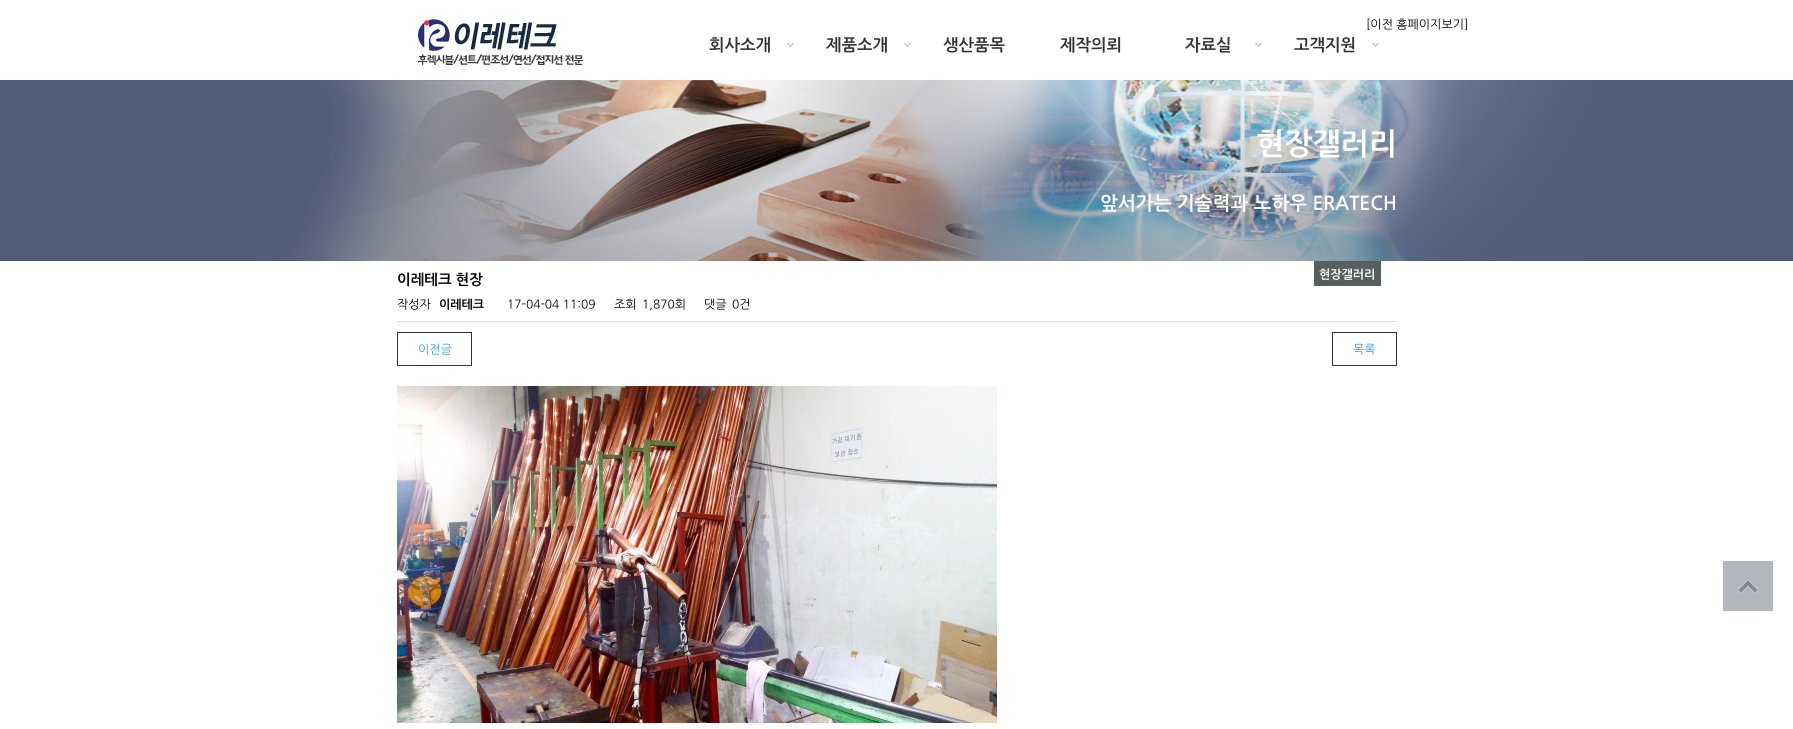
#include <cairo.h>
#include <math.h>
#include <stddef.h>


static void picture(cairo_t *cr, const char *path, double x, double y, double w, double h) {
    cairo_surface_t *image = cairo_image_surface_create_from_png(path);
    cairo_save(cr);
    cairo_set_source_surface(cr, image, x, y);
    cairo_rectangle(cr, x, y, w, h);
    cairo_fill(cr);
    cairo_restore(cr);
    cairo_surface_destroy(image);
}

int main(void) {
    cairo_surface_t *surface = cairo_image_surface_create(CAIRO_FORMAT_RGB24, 1793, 729);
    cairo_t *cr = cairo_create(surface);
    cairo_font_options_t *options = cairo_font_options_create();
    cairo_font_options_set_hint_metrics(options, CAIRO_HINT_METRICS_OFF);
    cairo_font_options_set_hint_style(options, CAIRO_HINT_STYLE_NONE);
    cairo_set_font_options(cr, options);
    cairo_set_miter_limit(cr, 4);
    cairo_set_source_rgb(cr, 1, 1, 1);
    cairo_paint(cr);
    picture(cr, "img1.png", 418, 19, 166, 46);
    cairo_select_font_face(cr, "NanumGothic", CAIRO_FONT_SLANT_NORMAL, CAIRO_FONT_WEIGHT_NORMAL);
    cairo_set_font_size(cr, 12);
    cairo_set_source_rgb(cr, 0, 0, 0);
    cairo_move_to(cr, 1366, 28);
    cairo_show_text(cr, "[이전 홈페이지보기]");
    picture(cr, "img2.png", 787, 43, 7, 4);
    cairo_select_font_face(cr, "NanumGothic", CAIRO_FONT_SLANT_NORMAL, CAIRO_FONT_WEIGHT_BOLD);
    cairo_set_font_size(cr, 16.5);
    cairo_set_source_rgb(cr, 0.2, 0.2, 0.2);
    cairo_move_to(cr, 709, 50);
    cairo_show_text(cr, "회사소개");
    picture(cr, "img2.png", 904, 43, 7, 4);
    cairo_move_to(cr, 826, 50);
    cairo_show_text(cr, "제품소개");
    cairo_move_to(cr, 943, 50);
    cairo_show_text(cr, "생산품목");
    cairo_move_to(cr, 1060, 50);
    cairo_show_text(cr, "제작의뢰");
    picture(cr, "img2.png", 1255, 43, 7, 4);
    cairo_move_to(cr, 1185, 50);
    cairo_show_text(cr, "자료실");
    picture(cr, "img2.png", 1372, 43, 7, 4);
    cairo_move_to(cr, 1294, 50);
    cairo_show_text(cr, "고객지원");
    picture(cr, "img3.png", 0, 77, 1793, 184);
    cairo_set_font_size(cr, 30);
    cairo_set_source_rgb(cr, 1, 1, 1);
    cairo_move_to(cr, 1256, 153);
    cairo_show_text(cr, "현장갤러리");
    cairo_set_font_size(cr, 19);
    cairo_move_to(cr, 1100, 209);
    cairo_show_text(cr, "앞서가는 기술력과 노하우 ERATECH");
    cairo_set_source_rgb(cr, 0.337, 0.369, 0.376);
    cairo_rectangle(cr, 1314, 261, 67, 25);
    cairo_fill(cr);
    cairo_set_font_size(cr, 12);
    cairo_set_source_rgb(cr, 1, 1, 1);
    cairo_move_to(cr, 1319, 278);
    cairo_show_text(cr, "현장갤러리");
    cairo_set_font_size(cr, 14.5);
    cairo_set_source_rgb(cr, 0, 0, 0);
    cairo_move_to(cr, 397, 284);
    cairo_show_text(cr, "이레테크 현장");
    cairo_set_source_rgb(cr, 0.867, 0.867, 0.867);
    cairo_rectangle(cr, 397, 321, 1000, 1);
    cairo_fill(cr);
    cairo_select_font_face(cr, "NanumGothic", CAIRO_FONT_SLANT_NORMAL, CAIRO_FONT_WEIGHT_NORMAL);
    cairo_set_font_size(cr, 12);
    cairo_set_source_rgb(cr, 0, 0, 0);
    cairo_move_to(cr, 397, 308);
    cairo_show_text(cr, "작성자");
    cairo_select_font_face(cr, "NanumGothic", CAIRO_FONT_SLANT_NORMAL, CAIRO_FONT_WEIGHT_BOLD);
    cairo_move_to(cr, 439, 308);
    cairo_show_text(cr, "이레테크");
    cairo_select_font_face(cr, "NanumGothic", CAIRO_FONT_SLANT_NORMAL, CAIRO_FONT_WEIGHT_NORMAL);
    cairo_move_to(cr, 507, 308);
    cairo_show_text(cr, "17-04-04 11:09");
    cairo_move_to(cr, 614, 308);
    cairo_show_text(cr, "조회");
    cairo_move_to(cr, 642, 308);
    cairo_show_text(cr, "1,870회");
    cairo_move_to(cr, 704, 308);
    cairo_show_text(cr, "댓글");
    cairo_move_to(cr, 732, 308);
    cairo_show_text(cr, "0건");
    cairo_rectangle(cr, 397.5, 332.5, 74, 33);
    cairo_set_source_rgb(cr, 0.2, 0.2, 0.2);
    cairo_set_line_width(cr, 1);
    cairo_stroke(cr);
    cairo_set_source_rgb(cr, 0.235, 0.584, 0.835);
    cairo_move_to(cr, 418, 353);
    cairo_show_text(cr, "이전글");
    cairo_rectangle(cr, 1332.5, 332.5, 64, 33);
    cairo_set_source_rgb(cr, 0.2, 0.2, 0.2);
    cairo_stroke(cr);
    cairo_set_source_rgb(cr, 0.235, 0.584, 0.835);
    cairo_move_to(cr, 1353, 353);
    cairo_show_text(cr, "목록");
    picture(cr, "img4.png", 397, 386, 600, 337);
    picture(cr, "img5.png", 1723, 561, 50, 50);
    cairo_surface_write_to_png(surface, "page.png");
    cairo_font_options_destroy(options);
    cairo_destroy(cr);
    cairo_surface_destroy(surface);
    return 0;
}
